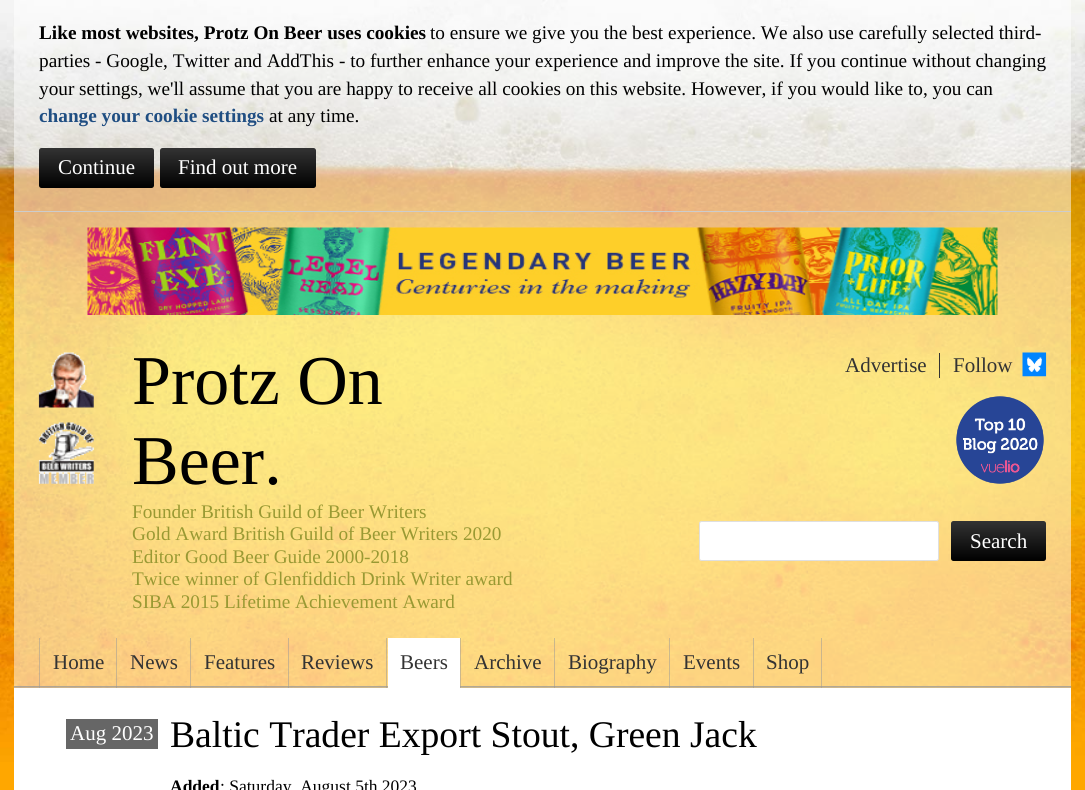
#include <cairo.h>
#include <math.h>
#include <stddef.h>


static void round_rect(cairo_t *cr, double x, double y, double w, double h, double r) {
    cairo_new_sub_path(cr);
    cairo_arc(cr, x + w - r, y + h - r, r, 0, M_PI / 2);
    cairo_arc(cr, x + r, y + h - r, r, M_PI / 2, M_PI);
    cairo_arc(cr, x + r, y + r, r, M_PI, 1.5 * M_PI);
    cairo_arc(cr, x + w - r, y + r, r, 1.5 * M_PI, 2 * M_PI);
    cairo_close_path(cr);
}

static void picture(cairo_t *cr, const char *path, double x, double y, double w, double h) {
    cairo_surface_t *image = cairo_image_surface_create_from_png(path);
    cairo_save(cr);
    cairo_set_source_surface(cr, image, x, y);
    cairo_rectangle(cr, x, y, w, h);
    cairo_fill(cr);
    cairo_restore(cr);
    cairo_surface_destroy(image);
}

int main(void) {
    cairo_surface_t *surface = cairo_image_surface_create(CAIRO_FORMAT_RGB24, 1085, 790);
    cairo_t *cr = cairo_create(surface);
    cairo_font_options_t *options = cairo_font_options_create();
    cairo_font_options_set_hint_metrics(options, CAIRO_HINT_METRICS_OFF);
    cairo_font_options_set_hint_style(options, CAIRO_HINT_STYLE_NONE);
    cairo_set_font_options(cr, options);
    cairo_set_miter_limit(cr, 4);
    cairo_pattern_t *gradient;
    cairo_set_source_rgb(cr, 1, 0.655, 0);
    cairo_paint(cr);
    picture(cr, "img1.png", 0, 0, 1085, 762);
    cairo_set_source_rgba(cr, 1, 1, 1, 0.5);
    cairo_rectangle(cr, 14, 0, 1057, 213);
    cairo_fill(cr);
    cairo_set_source_rgb(cr, 0.8, 0.8, 0.8);
    cairo_rectangle(cr, 14, 211, 1057, 1);
    cairo_fill(cr);
    cairo_select_font_face(cr, "Liberation Serif", CAIRO_FONT_SLANT_NORMAL, CAIRO_FONT_WEIGHT_BOLD);
    cairo_set_font_size(cr, 19.25);
    cairo_set_source_rgb(cr, 0, 0, 0);
    cairo_move_to(cr, 39, 39);
    cairo_show_text(cr, "Like most websites, Protz On Beer uses cookies");
    cairo_select_font_face(cr, "Liberation Serif", CAIRO_FONT_SLANT_NORMAL, CAIRO_FONT_WEIGHT_NORMAL);
    cairo_move_to(cr, 430, 39);
    cairo_show_text(cr, "to ensure we give you the best experience. We also use carefully selected third-");
    cairo_move_to(cr, 39, 67);
    cairo_show_text(cr, "parties - Google, Twitter and AddThis - to further enhance your experience and improve the site. If you continue without changing");
    cairo_move_to(cr, 39, 95);
    cairo_show_text(cr, "your settings, we'll assume that you are happy to receive all cookies on this website. However, if you would like to, you can");
    cairo_select_font_face(cr, "Liberation Serif", CAIRO_FONT_SLANT_NORMAL, CAIRO_FONT_WEIGHT_BOLD);
    cairo_set_source_rgb(cr, 0.125, 0.306, 0.51);
    cairo_move_to(cr, 39, 122);
    cairo_show_text(cr, "change your cookie settings");
    cairo_select_font_face(cr, "Liberation Serif", CAIRO_FONT_SLANT_NORMAL, CAIRO_FONT_WEIGHT_NORMAL);
    cairo_set_source_rgb(cr, 0, 0, 0);
    cairo_move_to(cr, 269, 122);
    cairo_show_text(cr, "at any time.");
    gradient = cairo_pattern_create_linear(39, 148, 39, 188);
    cairo_pattern_add_color_stop_rgba(gradient, 0, 0.2, 0.2, 0.2, 1);
    cairo_pattern_add_color_stop_rgba(gradient, 1, 0, 0, 0, 1);
    cairo_set_source(cr, gradient);
    cairo_pattern_destroy(gradient);
    round_rect(cr, 39, 148, 115, 40, 2.5);
    cairo_fill(cr);
    cairo_set_font_size(cr, 21);
    cairo_set_source_rgb(cr, 1, 1, 1);
    cairo_move_to(cr, 58, 174);
    cairo_show_text(cr, "Continue");
    gradient = cairo_pattern_create_linear(160, 148, 160, 188);
    cairo_pattern_add_color_stop_rgba(gradient, 0, 0.2, 0.2, 0.2, 1);
    cairo_pattern_add_color_stop_rgba(gradient, 1, 0, 0, 0, 1);
    cairo_set_source(cr, gradient);
    cairo_pattern_destroy(gradient);
    round_rect(cr, 160, 148, 156, 40, 2.5);
    cairo_fill(cr);
    cairo_set_source_rgb(cr, 1, 1, 1);
    cairo_move_to(cr, 178, 174);
    cairo_show_text(cr, "Find out more");
    cairo_set_source_rgba(cr, 1, 1, 1, 0.5);
    cairo_rectangle(cr, 14, 213, 1057, 102);
    cairo_fill(cr);
    picture(cr, "img2.png", 87, 227, 911, 88);
    cairo_rectangle(cr, 14, 315, 1057, 298);
    cairo_fill(cr);
    picture(cr, "img3.png", 38, 352, 56, 132);
    cairo_set_font_size(cr, 70);
    cairo_set_source_rgb(cr, 0, 0, 0);
    cairo_move_to(cr, 132, 404);
    cairo_show_text(cr, "Protz On");
    cairo_move_to(cr, 132, 484);
    cairo_show_text(cr, "Beer.");
    cairo_set_font_size(cr, 19.25);
    cairo_set_source_rgb(cr, 0.6, 0.6, 0.2);
    cairo_move_to(cr, 132, 518);
    cairo_show_text(cr, "Founder British Guild of Beer Writers");
    cairo_move_to(cr, 132, 540);
    cairo_show_text(cr, "Gold Award British Guild of Beer Writers 2020");
    cairo_move_to(cr, 132, 563);
    cairo_show_text(cr, "Editor Good Beer Guide 2000-2018");
    cairo_move_to(cr, 132, 585);
    cairo_show_text(cr, "Twice winner of Glenfiddich Drink Writer award");
    cairo_move_to(cr, 132, 608);
    cairo_show_text(cr, "SIBA 2015 Lifetime Achievement Award");
    cairo_set_source_rgb(cr, 0.2, 0.2, 0.2);
    cairo_rectangle(cr, 939, 353, 1, 25);
    cairo_fill(cr);
    cairo_set_font_size(cr, 21);
    cairo_move_to(cr, 845, 372);
    cairo_show_text(cr, "Advertise");
    cairo_move_to(cr, 953, 372);
    cairo_show_text(cr, "Follow");
    picture(cr, "img4.png", 1022, 352, 25, 25);
    picture(cr, "img5.png", 956, 396, 88, 88);
    cairo_set_source_rgb(cr, 1, 1, 1);
    round_rect(cr, 699.5, 521.5, 239, 39, 2);
    cairo_fill_preserve(cr);
    cairo_set_source_rgb(cr, 0.875, 0.875, 0.875);
    cairo_set_line_width(cr, 1);
    cairo_stroke(cr);
    gradient = cairo_pattern_create_linear(951, 521, 951, 561);
    cairo_pattern_add_color_stop_rgba(gradient, 0, 0.2, 0.2, 0.2, 1);
    cairo_pattern_add_color_stop_rgba(gradient, 1, 0, 0, 0, 1);
    cairo_set_source(cr, gradient);
    cairo_pattern_destroy(gradient);
    round_rect(cr, 951, 521, 95, 40, 2.5);
    cairo_fill(cr);
    cairo_set_source_rgb(cr, 1, 1, 1);
    cairo_move_to(cr, 970, 548);
    cairo_show_text(cr, "Search");
    cairo_set_source_rgba(cr, 1, 1, 1, 0.5);
    cairo_rectangle(cr, 14, 613, 1057, 75);
    cairo_fill(cr);
    picture(cr, "img6.png", 13, 686, 1059, 2);
    cairo_set_source_rgba(cr, 0.6, 0.6, 0.6, 0.5);
    cairo_rectangle(cr, 39, 638, 1, 50);
    cairo_fill(cr);
    cairo_rectangle(cr, 116, 638, 1, 50);
    cairo_fill(cr);
    cairo_set_source_rgb(cr, 0.2, 0.2, 0.2);
    cairo_move_to(cr, 53, 669);
    cairo_show_text(cr, "Home");
    cairo_set_source_rgba(cr, 0.6, 0.6, 0.6, 0.5);
    cairo_rectangle(cr, 190, 638, 1, 50);
    cairo_fill(cr);
    cairo_set_source_rgb(cr, 0.2, 0.2, 0.2);
    cairo_move_to(cr, 130, 669);
    cairo_show_text(cr, "News");
    cairo_set_source_rgba(cr, 0.6, 0.6, 0.6, 0.5);
    cairo_rectangle(cr, 288, 638, 1, 50);
    cairo_fill(cr);
    cairo_set_source_rgb(cr, 0.2, 0.2, 0.2);
    cairo_move_to(cr, 204, 669);
    cairo_show_text(cr, "Features");
    cairo_set_source_rgba(cr, 0.6, 0.6, 0.6, 0.5);
    cairo_rectangle(cr, 386, 638, 1, 50);
    cairo_fill(cr);
    cairo_set_source_rgb(cr, 0.2, 0.2, 0.2);
    cairo_move_to(cr, 301, 669);
    cairo_show_text(cr, "Reviews");
    cairo_set_source_rgba(cr, 0.6, 0.6, 0.6, 0.5);
    cairo_rectangle(cr, 460, 638, 1, 50);
    cairo_fill(cr);
    cairo_set_source_rgb(cr, 1, 1, 1);
    cairo_rectangle(cr, 388, 638, 72, 50);
    cairo_fill(cr);
    cairo_set_source_rgb(cr, 0.2, 0.2, 0.2);
    cairo_move_to(cr, 400, 669);
    cairo_show_text(cr, "Beers");
    cairo_set_source_rgba(cr, 0.6, 0.6, 0.6, 0.5);
    cairo_rectangle(cr, 554, 638, 1, 50);
    cairo_fill(cr);
    cairo_set_source_rgb(cr, 0.2, 0.2, 0.2);
    cairo_move_to(cr, 474, 669);
    cairo_show_text(cr, "Archive");
    cairo_set_source_rgba(cr, 0.6, 0.6, 0.6, 0.5);
    cairo_rectangle(cr, 669, 638, 1, 50);
    cairo_fill(cr);
    cairo_set_source_rgb(cr, 0.2, 0.2, 0.2);
    cairo_move_to(cr, 568, 669);
    cairo_show_text(cr, "Biography");
    cairo_set_source_rgba(cr, 0.6, 0.6, 0.6, 0.5);
    cairo_rectangle(cr, 753, 638, 1, 50);
    cairo_fill(cr);
    cairo_set_source_rgb(cr, 0.2, 0.2, 0.2);
    cairo_move_to(cr, 683, 669);
    cairo_show_text(cr, "Events");
    cairo_set_source_rgba(cr, 0.6, 0.6, 0.6, 0.5);
    cairo_rectangle(cr, 821, 638, 1, 50);
    cairo_fill(cr);
    cairo_set_source_rgb(cr, 0.2, 0.2, 0.2);
    cairo_move_to(cr, 766, 669);
    cairo_show_text(cr, "Shop");
    cairo_set_source_rgb(cr, 1, 1, 1);
    cairo_rectangle(cr, 14, 688, 1057, 102);
    cairo_fill(cr);
    cairo_set_source_rgb(cr, 0.4, 0.4, 0.4);
    cairo_rectangle(cr, 66, 719, 92, 30);
    cairo_fill(cr);
    cairo_set_source_rgb(cr, 1, 1, 1);
    cairo_move_to(cr, 70, 740);
    cairo_show_text(cr, "Aug 2023");
    cairo_set_font_size(cr, 37.6);
    cairo_set_source_rgb(cr, 0, 0, 0);
    cairo_move_to(cr, 170, 747);
    cairo_show_text(cr, "Baltic Trader Export Stout, Green Jack");
    cairo_select_font_face(cr, "Liberation Serif", CAIRO_FONT_SLANT_NORMAL, CAIRO_FONT_WEIGHT_BOLD);
    cairo_set_font_size(cr, 17.5);
    cairo_move_to(cr, 170, 792);
    cairo_show_text(cr, "Added");
    cairo_select_font_face(cr, "Liberation Serif", CAIRO_FONT_SLANT_NORMAL, CAIRO_FONT_WEIGHT_NORMAL);
    cairo_move_to(cr, 220, 792);
    cairo_show_text(cr, ": Saturday, August 5th 2023");
    cairo_surface_write_to_png(surface, "page.png");
    cairo_font_options_destroy(options);
    cairo_destroy(cr);
    cairo_surface_destroy(surface);
    return 0;
}
